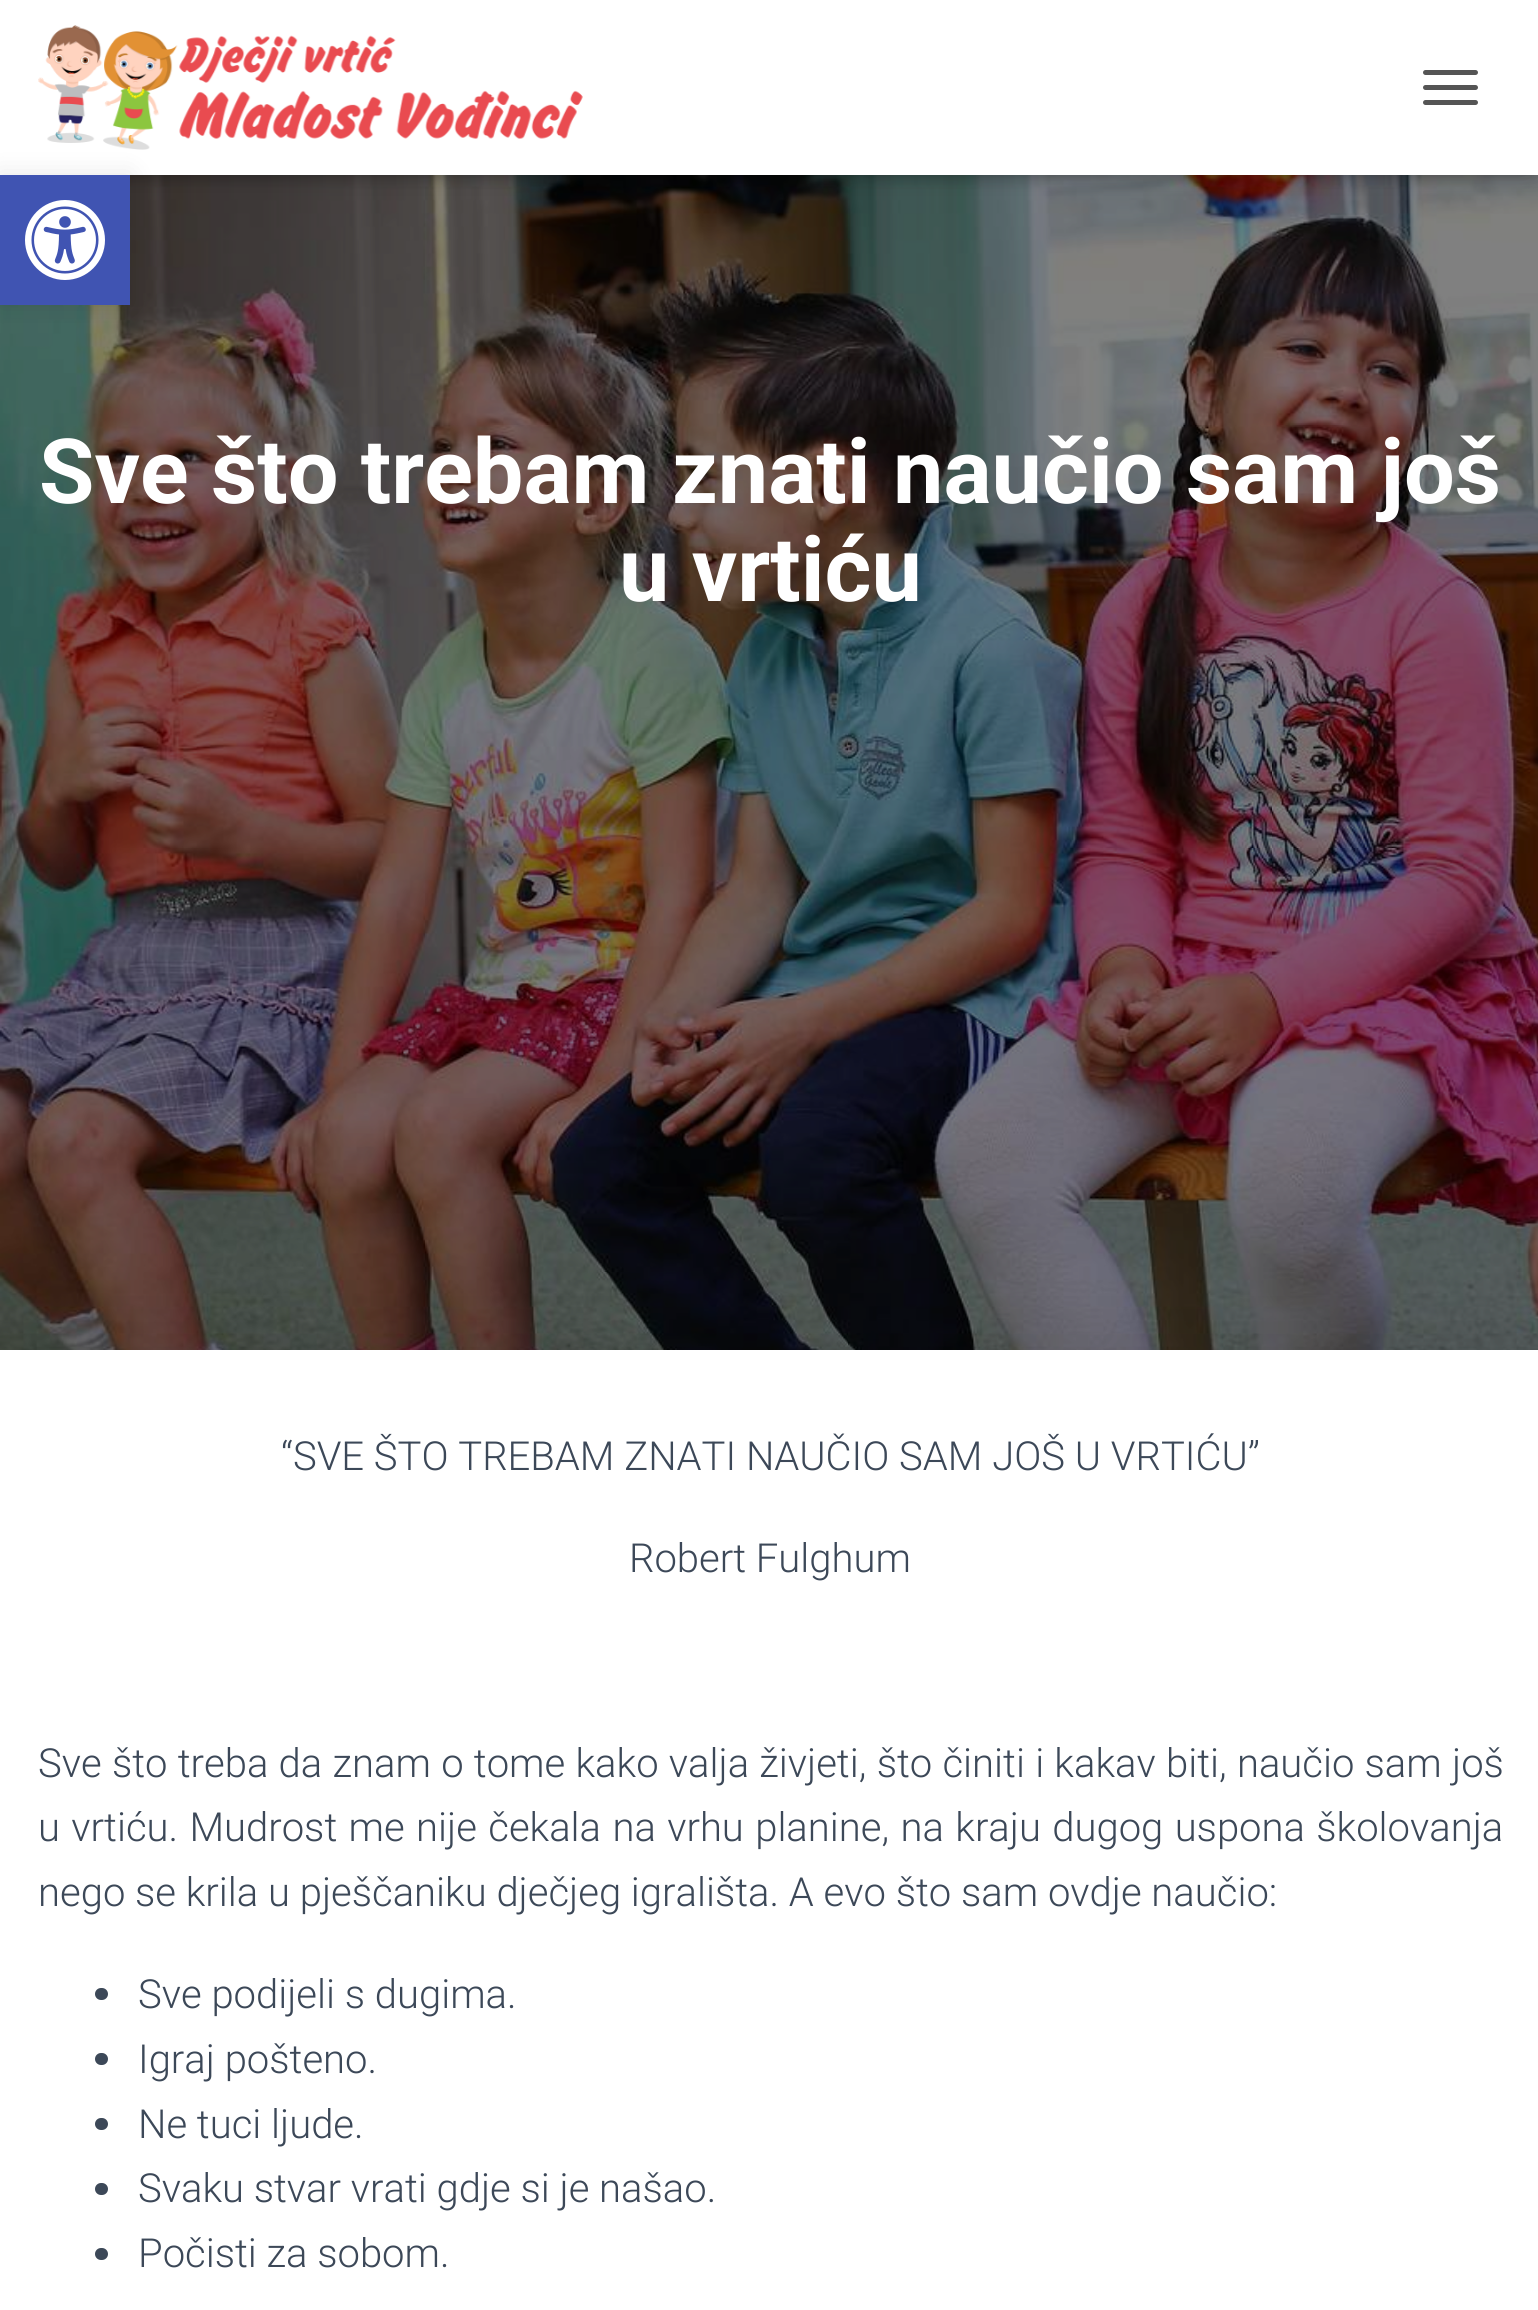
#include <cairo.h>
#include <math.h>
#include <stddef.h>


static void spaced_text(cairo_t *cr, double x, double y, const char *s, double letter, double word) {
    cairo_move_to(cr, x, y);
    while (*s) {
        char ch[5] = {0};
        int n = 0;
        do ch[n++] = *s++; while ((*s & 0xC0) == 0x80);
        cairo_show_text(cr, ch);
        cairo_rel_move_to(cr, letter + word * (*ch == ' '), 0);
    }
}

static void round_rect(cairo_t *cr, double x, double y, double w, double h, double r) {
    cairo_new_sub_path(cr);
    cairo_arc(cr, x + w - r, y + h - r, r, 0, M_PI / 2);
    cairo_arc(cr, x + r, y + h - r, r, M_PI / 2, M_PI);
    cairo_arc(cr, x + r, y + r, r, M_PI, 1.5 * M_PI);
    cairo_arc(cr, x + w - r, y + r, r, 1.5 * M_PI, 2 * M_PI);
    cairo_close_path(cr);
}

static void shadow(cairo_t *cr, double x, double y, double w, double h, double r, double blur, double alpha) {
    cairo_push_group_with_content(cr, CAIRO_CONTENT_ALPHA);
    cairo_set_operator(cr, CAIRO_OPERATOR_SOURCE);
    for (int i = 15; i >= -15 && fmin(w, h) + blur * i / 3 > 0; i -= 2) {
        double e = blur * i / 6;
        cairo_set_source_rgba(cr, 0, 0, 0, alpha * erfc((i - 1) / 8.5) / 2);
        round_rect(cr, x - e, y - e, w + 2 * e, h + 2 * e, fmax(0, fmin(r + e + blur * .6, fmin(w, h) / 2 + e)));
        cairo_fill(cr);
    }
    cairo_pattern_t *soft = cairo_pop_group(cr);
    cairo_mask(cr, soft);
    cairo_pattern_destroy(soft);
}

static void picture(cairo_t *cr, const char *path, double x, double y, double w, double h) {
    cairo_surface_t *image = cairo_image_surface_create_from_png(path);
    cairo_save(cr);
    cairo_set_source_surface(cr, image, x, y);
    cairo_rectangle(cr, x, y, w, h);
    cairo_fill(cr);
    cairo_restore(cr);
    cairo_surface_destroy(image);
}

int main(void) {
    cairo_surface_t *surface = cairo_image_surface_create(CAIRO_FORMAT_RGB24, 1538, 2310);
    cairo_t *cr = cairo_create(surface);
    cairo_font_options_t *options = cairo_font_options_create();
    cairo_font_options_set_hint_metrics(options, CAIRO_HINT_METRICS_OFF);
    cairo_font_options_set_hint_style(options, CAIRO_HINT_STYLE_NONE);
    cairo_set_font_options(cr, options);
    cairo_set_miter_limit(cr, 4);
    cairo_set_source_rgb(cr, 1, 1, 1);
    cairo_paint(cr);
    picture(cr, "img3.png", 0, 175, 1538, 1175);
    cairo_set_source_rgb(cr, 0, 0, 0);
    shadow(cr, 5, 15, 1530, 165, 0, 6, 0.1);
    shadow(cr, 0, 3, 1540, 175, 0, 12.5, 0.12);
    shadow(cr, 15, 18, 1510, 145, 0, 12.5, 0.42);
    cairo_set_source_rgb(cr, 1, 1, 1);
    cairo_rectangle(cr, 0, 0, 1538, 175);
    cairo_fill(cr);
    picture(cr, "img2.png", 38, 25, 545, 125);
    cairo_set_source_rgb(cr, 0, 0, 0);
    shadow(cr, 0, 175, 130, 130, 0, 12.5, 0.1);
    cairo_set_source_rgb(cr, 0.251, 0.329, 0.698);
    cairo_rectangle(cr, 0, 175, 130, 130);
    cairo_fill(cr);
    picture(cr, "img1.png", 25, 200, 80, 80);
    cairo_set_source_rgb(cr, 0.333, 0.333, 0.333);
    round_rect(cr, 1423, 70, 55, 5, 2.5);
    cairo_fill(cr);
    round_rect(cr, 1423, 85, 55, 5, 2.5);
    cairo_fill(cr);
    round_rect(cr, 1423, 100, 55, 5, 2.5);
    cairo_fill(cr);
    cairo_select_font_face(cr, "Roboto", CAIRO_FONT_SLANT_NORMAL, CAIRO_FONT_WEIGHT_BOLD);
    cairo_set_font_size(cr, 90);
    cairo_set_source_rgb(cr, 1, 1, 1);
    cairo_move_to(cr, 39, 503);
    cairo_show_text(cr, "Sve što trebam znati naučio sam još");
    cairo_move_to(cr, 619, 601);
    cairo_show_text(cr, "u vrtiću");
    cairo_set_source_rgb(cr, 0, 0, 0);
    shadow(cr, -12, 1353, 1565, 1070, 0, 37.5, 0.12);
    cairo_set_source_rgb(cr, 1, 1, 1);
    cairo_rectangle(cr, 0, 1350, 1538, 960);
    cairo_fill(cr);
    cairo_select_font_face(cr, "Roboto Light", CAIRO_FONT_SLANT_NORMAL, CAIRO_FONT_WEIGHT_NORMAL);
    cairo_set_font_size(cr, 40);
    cairo_set_source_rgb(cr, 0.235, 0.282, 0.345);
    cairo_move_to(cr, 281, 1470);
    cairo_show_text(cr, "“SVE ŠTO TREBAM ZNATI NAUČIO SAM JOŠ U VRTIĆU”");
    cairo_move_to(cr, 629, 1572);
    cairo_show_text(cr, "Robert Fulghum");
    spaced_text(cr, 38, 1777, "Sve što treba da znam o tome kako valja živjeti, što činiti i kakav biti, naučio sam još", 0, 0.5);
    spaced_text(cr, 38, 1841, "u vrtiću. Mudrost me nije čekala na vrhu planine, na kraju dugog uspona školovanja", 0, 1.6);
    cairo_move_to(cr, 38, 1906);
    cairo_show_text(cr, "nego se krila u pješčaniku dječjeg igrališta. A evo što sam ovdje naučio:");
    round_rect(cr, 95, 1988, 13, 12, 6);
    cairo_fill(cr);
    cairo_move_to(cr, 138, 2008);
    cairo_show_text(cr, "Sve podijeli s dugima.");
    round_rect(cr, 95, 2053, 13, 12, 6);
    cairo_fill(cr);
    cairo_move_to(cr, 138, 2073);
    cairo_show_text(cr, "Igraj pošteno.");
    round_rect(cr, 95, 2118, 13, 12, 6);
    cairo_fill(cr);
    cairo_move_to(cr, 138, 2138);
    cairo_show_text(cr, "Ne tuci ljude.");
    round_rect(cr, 95, 2183, 13, 12, 6);
    cairo_fill(cr);
    cairo_move_to(cr, 138, 2202);
    cairo_show_text(cr, "Svaku stvar vrati gdje si je našao.");
    round_rect(cr, 95, 2248, 13, 12, 6);
    cairo_fill(cr);
    cairo_move_to(cr, 138, 2267);
    cairo_show_text(cr, "Počisti za sobom.");
    cairo_surface_write_to_png(surface, "page.png");
    cairo_font_options_destroy(options);
    cairo_destroy(cr);
    cairo_surface_destroy(surface);
    return 0;
}
